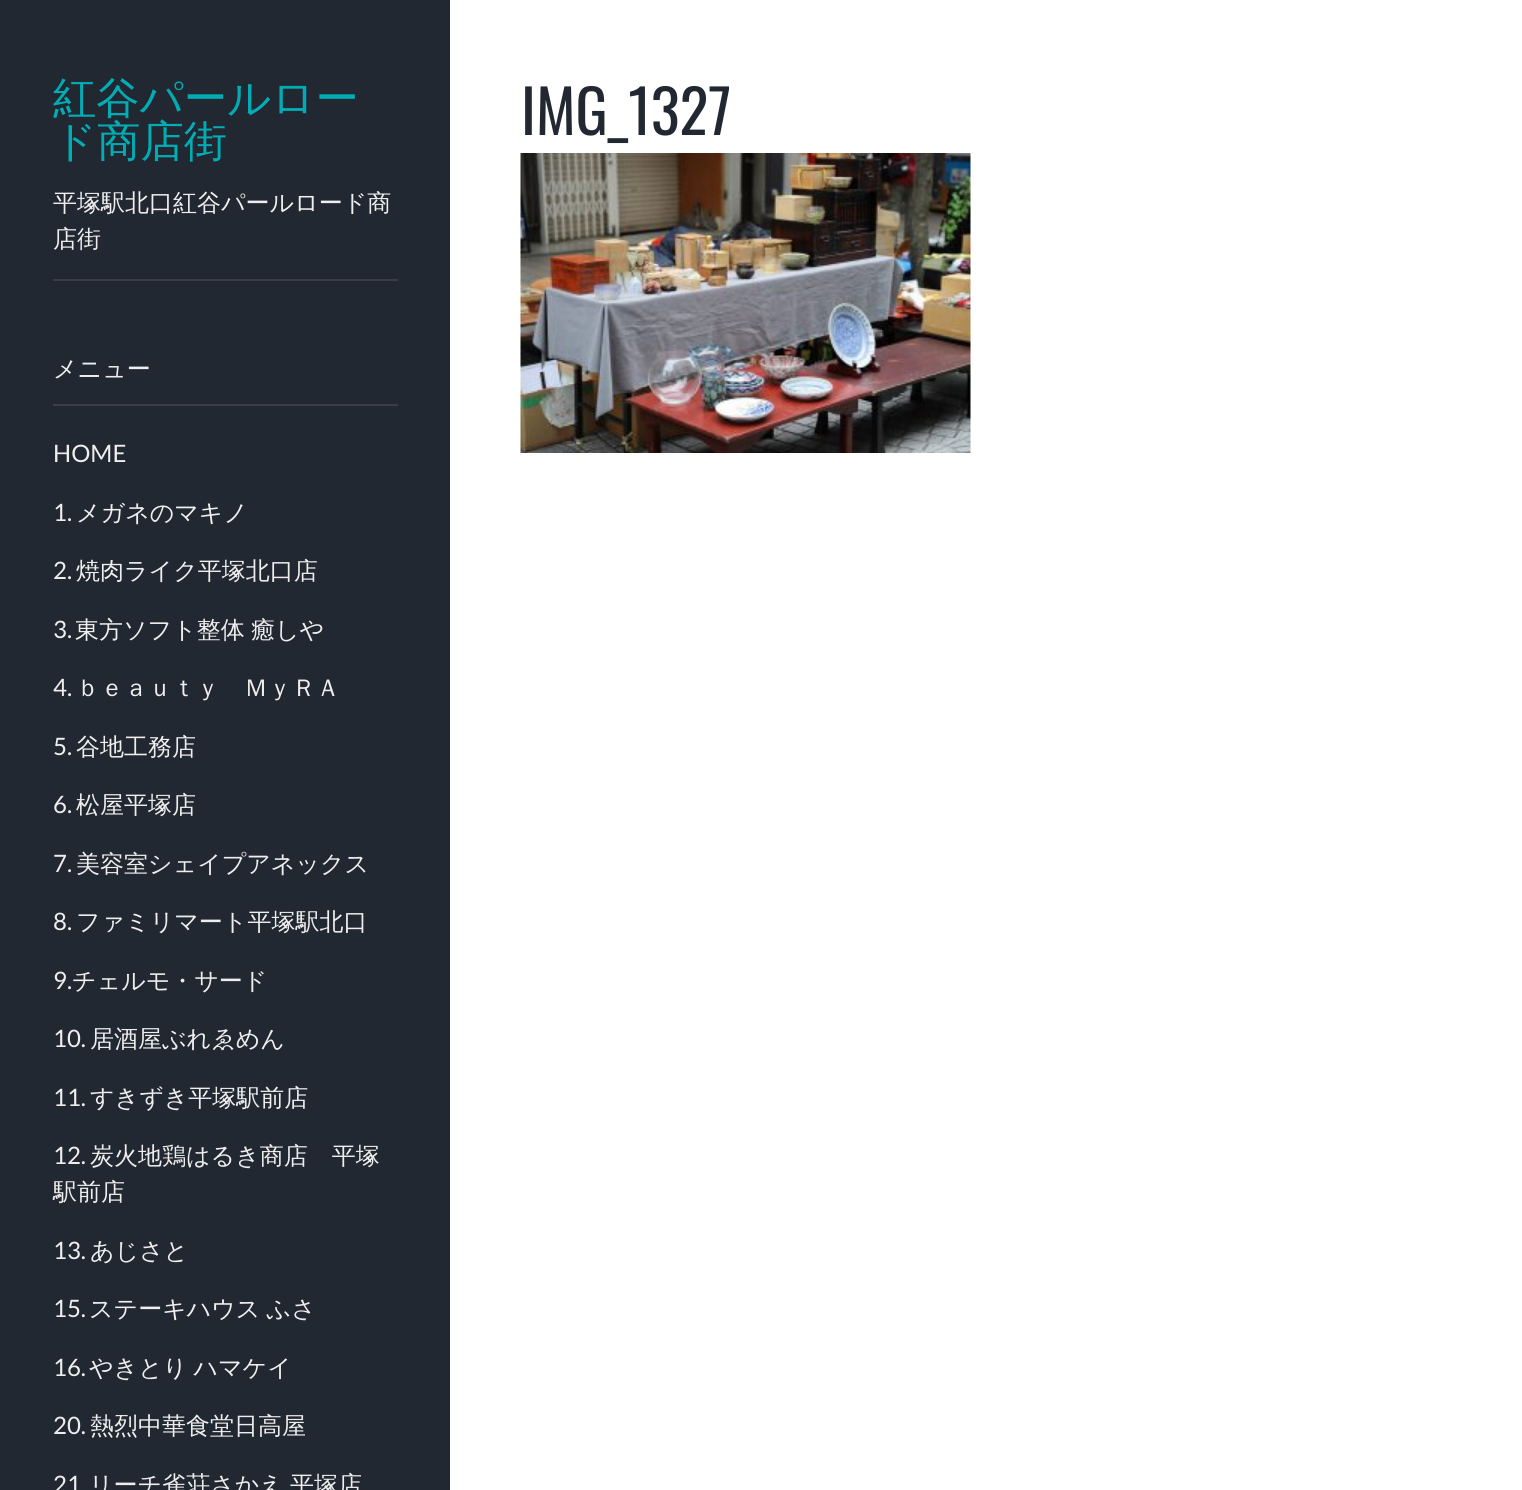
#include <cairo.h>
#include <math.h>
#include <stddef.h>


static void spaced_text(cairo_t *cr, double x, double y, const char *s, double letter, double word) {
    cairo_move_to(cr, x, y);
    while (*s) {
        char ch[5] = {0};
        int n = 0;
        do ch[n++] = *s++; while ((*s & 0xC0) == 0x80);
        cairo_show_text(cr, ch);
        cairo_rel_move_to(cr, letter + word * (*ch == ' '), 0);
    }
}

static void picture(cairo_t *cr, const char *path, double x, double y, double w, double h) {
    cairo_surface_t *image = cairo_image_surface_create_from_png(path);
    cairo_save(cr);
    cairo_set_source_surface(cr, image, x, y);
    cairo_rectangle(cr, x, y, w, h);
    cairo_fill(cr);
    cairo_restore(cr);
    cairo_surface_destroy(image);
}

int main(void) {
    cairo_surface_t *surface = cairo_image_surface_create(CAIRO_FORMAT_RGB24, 1522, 1490);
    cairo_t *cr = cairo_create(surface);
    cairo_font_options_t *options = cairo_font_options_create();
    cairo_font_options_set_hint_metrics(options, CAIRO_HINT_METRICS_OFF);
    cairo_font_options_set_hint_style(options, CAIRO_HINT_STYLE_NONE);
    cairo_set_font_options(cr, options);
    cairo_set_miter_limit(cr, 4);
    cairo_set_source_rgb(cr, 1, 1, 1);
    cairo_paint(cr);
    cairo_set_source_rgb(cr, 0.133, 0.157, 0.192);
    cairo_rectangle(cr, 0, 0, 450, 1490);
    cairo_fill(cr);
    cairo_set_source_rgb(cr, 0.224, 0.243, 0.275);
    cairo_rectangle(cr, 53, 279, 345, 2);
    cairo_fill(cr);
    cairo_select_font_face(cr, "WenQuanYi Zen Hei Medium", CAIRO_FONT_SLANT_NORMAL, CAIRO_FONT_WEIGHT_NORMAL);
    cairo_set_font_size(cr, 43.25);
    cairo_set_source_rgb(cr, 0, 0.678, 0.71);
    cairo_move_to(cr, 53, 113);
    cairo_show_text(cr, "紅谷パールロー");
    cairo_move_to(cr, 53, 156);
    cairo_show_text(cr, "ド商店街");
    cairo_set_font_size(cr, 24);
    cairo_set_source_rgb(cr, 0.933, 0.933, 0.933);
    cairo_move_to(cr, 53, 211);
    cairo_show_text(cr, "平塚駅北口紅谷パールロード商");
    cairo_move_to(cr, 53, 247);
    cairo_show_text(cr, "店街");
    cairo_set_source_rgb(cr, 0.224, 0.243, 0.275);
    cairo_rectangle(cr, 53, 404, 345, 2);
    cairo_fill(cr);
    cairo_set_source_rgb(cr, 0.933, 0.933, 0.933);
    cairo_move_to(cr, 53, 377);
    cairo_show_text(cr, "メニュー");
    cairo_select_font_face(cr, "Lato", CAIRO_FONT_SLANT_NORMAL, CAIRO_FONT_WEIGHT_NORMAL);
    cairo_move_to(cr, 53, 462);
    cairo_show_text(cr, "HOME");
    cairo_move_to(cr, 53, 521);
    cairo_show_text(cr, "1.");
    cairo_select_font_face(cr, "WenQuanYi Zen Hei Medium", CAIRO_FONT_SLANT_NORMAL, CAIRO_FONT_WEIGHT_NORMAL);
    cairo_move_to(cr, 76, 521);
    cairo_show_text(cr, "メガネのマキノ");
    cairo_select_font_face(cr, "Lato", CAIRO_FONT_SLANT_NORMAL, CAIRO_FONT_WEIGHT_NORMAL);
    cairo_move_to(cr, 53, 579);
    cairo_show_text(cr, "2.");
    cairo_select_font_face(cr, "WenQuanYi Zen Hei Medium", CAIRO_FONT_SLANT_NORMAL, CAIRO_FONT_WEIGHT_NORMAL);
    cairo_move_to(cr, 76, 579);
    cairo_show_text(cr, "焼肉ライク平塚北口店");
    cairo_select_font_face(cr, "Lato", CAIRO_FONT_SLANT_NORMAL, CAIRO_FONT_WEIGHT_NORMAL);
    cairo_move_to(cr, 53, 638);
    cairo_show_text(cr, "3.");
    cairo_select_font_face(cr, "WenQuanYi Zen Hei Medium", CAIRO_FONT_SLANT_NORMAL, CAIRO_FONT_WEIGHT_NORMAL);
    spaced_text(cr, 75, 638, "東方ソフト整体 癒しや", 0, -1);
    cairo_select_font_face(cr, "Lato", CAIRO_FONT_SLANT_NORMAL, CAIRO_FONT_WEIGHT_NORMAL);
    cairo_move_to(cr, 53, 696);
    cairo_show_text(cr, "4.");
    cairo_select_font_face(cr, "WenQuanYi Zen Hei Medium", CAIRO_FONT_SLANT_NORMAL, CAIRO_FONT_WEIGHT_NORMAL);
    cairo_move_to(cr, 76, 696);
    cairo_show_text(cr, "ｂｅａｕｔｙ　ＭｙＲＡ");
    cairo_select_font_face(cr, "Lato", CAIRO_FONT_SLANT_NORMAL, CAIRO_FONT_WEIGHT_NORMAL);
    cairo_move_to(cr, 53, 755);
    cairo_show_text(cr, "5.");
    cairo_select_font_face(cr, "WenQuanYi Zen Hei Medium", CAIRO_FONT_SLANT_NORMAL, CAIRO_FONT_WEIGHT_NORMAL);
    cairo_move_to(cr, 76, 755);
    cairo_show_text(cr, "谷地工務店");
    cairo_select_font_face(cr, "Lato", CAIRO_FONT_SLANT_NORMAL, CAIRO_FONT_WEIGHT_NORMAL);
    cairo_move_to(cr, 53, 813);
    cairo_show_text(cr, "6.");
    cairo_select_font_face(cr, "WenQuanYi Zen Hei Medium", CAIRO_FONT_SLANT_NORMAL, CAIRO_FONT_WEIGHT_NORMAL);
    cairo_move_to(cr, 76, 813);
    cairo_show_text(cr, "松屋平塚店");
    cairo_select_font_face(cr, "Lato", CAIRO_FONT_SLANT_NORMAL, CAIRO_FONT_WEIGHT_NORMAL);
    cairo_move_to(cr, 53, 872);
    cairo_show_text(cr, "7.");
    cairo_select_font_face(cr, "WenQuanYi Zen Hei Medium", CAIRO_FONT_SLANT_NORMAL, CAIRO_FONT_WEIGHT_NORMAL);
    cairo_move_to(cr, 76, 872);
    cairo_show_text(cr, "美容室シェイプアネックス");
    cairo_select_font_face(cr, "Lato", CAIRO_FONT_SLANT_NORMAL, CAIRO_FONT_WEIGHT_NORMAL);
    cairo_move_to(cr, 53, 930);
    cairo_show_text(cr, "8.");
    cairo_select_font_face(cr, "WenQuanYi Zen Hei Medium", CAIRO_FONT_SLANT_NORMAL, CAIRO_FONT_WEIGHT_NORMAL);
    cairo_move_to(cr, 76, 930);
    cairo_show_text(cr, "ファミリマート平塚駅北口");
    cairo_select_font_face(cr, "Lato", CAIRO_FONT_SLANT_NORMAL, CAIRO_FONT_WEIGHT_NORMAL);
    cairo_move_to(cr, 53, 989);
    cairo_show_text(cr, "9.");
    cairo_select_font_face(cr, "WenQuanYi Zen Hei Medium", CAIRO_FONT_SLANT_NORMAL, CAIRO_FONT_WEIGHT_NORMAL);
    cairo_move_to(cr, 72, 989);
    cairo_show_text(cr, "チェルモ・サード");
    cairo_select_font_face(cr, "Lato", CAIRO_FONT_SLANT_NORMAL, CAIRO_FONT_WEIGHT_NORMAL);
    cairo_move_to(cr, 53, 1047);
    cairo_show_text(cr, "10.");
    cairo_select_font_face(cr, "WenQuanYi Zen Hei Medium", CAIRO_FONT_SLANT_NORMAL, CAIRO_FONT_WEIGHT_NORMAL);
    cairo_move_to(cr, 90, 1047);
    cairo_show_text(cr, "居酒屋ぶれゑめん");
    cairo_select_font_face(cr, "Lato", CAIRO_FONT_SLANT_NORMAL, CAIRO_FONT_WEIGHT_NORMAL);
    cairo_move_to(cr, 53, 1106);
    cairo_show_text(cr, "11.");
    cairo_select_font_face(cr, "WenQuanYi Zen Hei Medium", CAIRO_FONT_SLANT_NORMAL, CAIRO_FONT_WEIGHT_NORMAL);
    cairo_move_to(cr, 90, 1106);
    cairo_show_text(cr, "すきずき平塚駅前店");
    cairo_select_font_face(cr, "Lato", CAIRO_FONT_SLANT_NORMAL, CAIRO_FONT_WEIGHT_NORMAL);
    cairo_move_to(cr, 53, 1164);
    cairo_show_text(cr, "12.");
    cairo_select_font_face(cr, "WenQuanYi Zen Hei Medium", CAIRO_FONT_SLANT_NORMAL, CAIRO_FONT_WEIGHT_NORMAL);
    cairo_move_to(cr, 90, 1164);
    cairo_show_text(cr, "炭火地鶏はるき商店　平塚");
    cairo_move_to(cr, 53, 1200);
    cairo_show_text(cr, "駅前店");
    cairo_select_font_face(cr, "Lato", CAIRO_FONT_SLANT_NORMAL, CAIRO_FONT_WEIGHT_NORMAL);
    cairo_move_to(cr, 53, 1259);
    cairo_show_text(cr, "13.");
    cairo_select_font_face(cr, "WenQuanYi Zen Hei Medium", CAIRO_FONT_SLANT_NORMAL, CAIRO_FONT_WEIGHT_NORMAL);
    cairo_move_to(cr, 90, 1259);
    cairo_show_text(cr, "あじさと");
    cairo_select_font_face(cr, "Lato", CAIRO_FONT_SLANT_NORMAL, CAIRO_FONT_WEIGHT_NORMAL);
    cairo_move_to(cr, 53, 1317);
    cairo_show_text(cr, "15.");
    cairo_select_font_face(cr, "WenQuanYi Zen Hei Medium", CAIRO_FONT_SLANT_NORMAL, CAIRO_FONT_WEIGHT_NORMAL);
    spaced_text(cr, 89, 1317, "ステーキハウス ふさ", 0, -1);
    cairo_select_font_face(cr, "Lato", CAIRO_FONT_SLANT_NORMAL, CAIRO_FONT_WEIGHT_NORMAL);
    cairo_move_to(cr, 53, 1376);
    cairo_show_text(cr, "16.");
    cairo_select_font_face(cr, "WenQuanYi Zen Hei Medium", CAIRO_FONT_SLANT_NORMAL, CAIRO_FONT_WEIGHT_NORMAL);
    spaced_text(cr, 89, 1376, "やきとり ハマケイ", 0, -1);
    cairo_select_font_face(cr, "Lato", CAIRO_FONT_SLANT_NORMAL, CAIRO_FONT_WEIGHT_NORMAL);
    cairo_move_to(cr, 53, 1434);
    cairo_show_text(cr, "20.");
    cairo_select_font_face(cr, "WenQuanYi Zen Hei Medium", CAIRO_FONT_SLANT_NORMAL, CAIRO_FONT_WEIGHT_NORMAL);
    cairo_move_to(cr, 90, 1434);
    cairo_show_text(cr, "熱烈中華食堂日高屋");
    cairo_select_font_face(cr, "Lato", CAIRO_FONT_SLANT_NORMAL, CAIRO_FONT_WEIGHT_NORMAL);
    cairo_move_to(cr, 53, 1493);
    cairo_show_text(cr, "21");
    cairo_select_font_face(cr, "WenQuanYi Zen Hei Medium", CAIRO_FONT_SLANT_NORMAL, CAIRO_FONT_WEIGHT_NORMAL);
    spaced_text(cr, 89, 1493, "リーチ雀荘さかえ 平塚店", 0, -1);
    cairo_select_font_face(cr, "Oswald", CAIRO_FONT_SLANT_NORMAL, CAIRO_FONT_WEIGHT_NORMAL);
    cairo_set_font_size(cr, 60);
    cairo_set_source_rgb(cr, 0.133, 0.157, 0.192);
    cairo_move_to(cr, 521, 135);
    cairo_show_text(cr, "IMG_1327");
    picture(cr, "img1.png", 520, 153, 451, 300);
    cairo_surface_write_to_png(surface, "page.png");
    cairo_font_options_destroy(options);
    cairo_destroy(cr);
    cairo_surface_destroy(surface);
    return 0;
}
